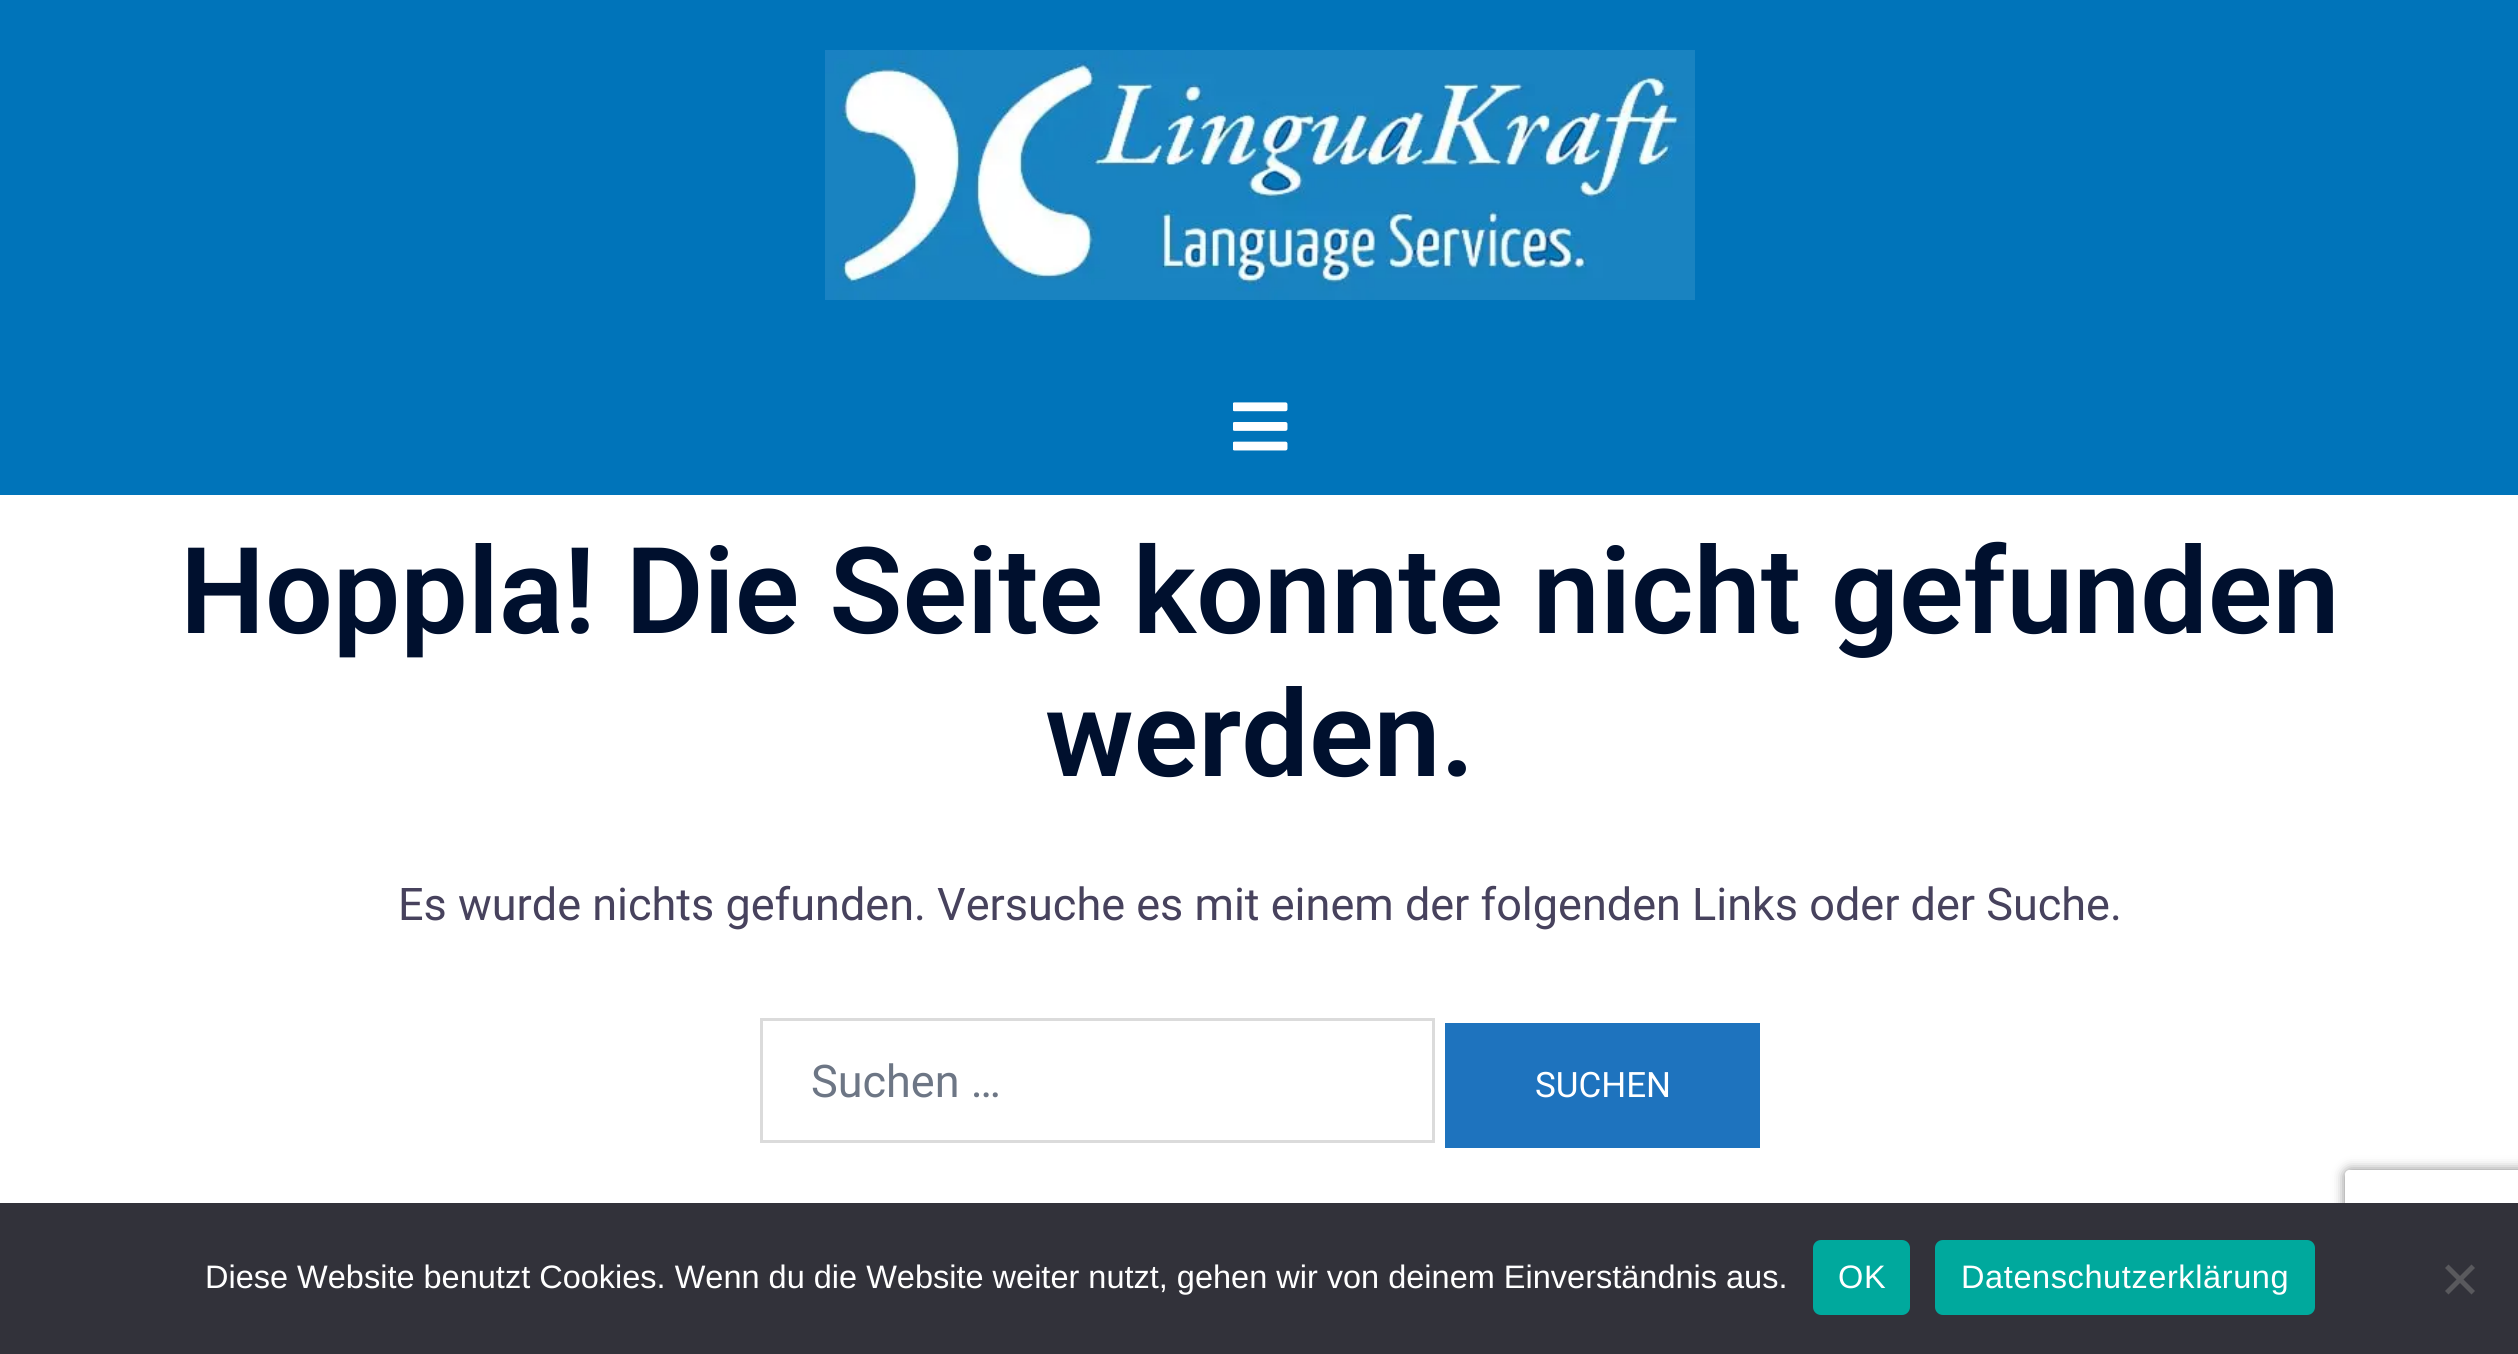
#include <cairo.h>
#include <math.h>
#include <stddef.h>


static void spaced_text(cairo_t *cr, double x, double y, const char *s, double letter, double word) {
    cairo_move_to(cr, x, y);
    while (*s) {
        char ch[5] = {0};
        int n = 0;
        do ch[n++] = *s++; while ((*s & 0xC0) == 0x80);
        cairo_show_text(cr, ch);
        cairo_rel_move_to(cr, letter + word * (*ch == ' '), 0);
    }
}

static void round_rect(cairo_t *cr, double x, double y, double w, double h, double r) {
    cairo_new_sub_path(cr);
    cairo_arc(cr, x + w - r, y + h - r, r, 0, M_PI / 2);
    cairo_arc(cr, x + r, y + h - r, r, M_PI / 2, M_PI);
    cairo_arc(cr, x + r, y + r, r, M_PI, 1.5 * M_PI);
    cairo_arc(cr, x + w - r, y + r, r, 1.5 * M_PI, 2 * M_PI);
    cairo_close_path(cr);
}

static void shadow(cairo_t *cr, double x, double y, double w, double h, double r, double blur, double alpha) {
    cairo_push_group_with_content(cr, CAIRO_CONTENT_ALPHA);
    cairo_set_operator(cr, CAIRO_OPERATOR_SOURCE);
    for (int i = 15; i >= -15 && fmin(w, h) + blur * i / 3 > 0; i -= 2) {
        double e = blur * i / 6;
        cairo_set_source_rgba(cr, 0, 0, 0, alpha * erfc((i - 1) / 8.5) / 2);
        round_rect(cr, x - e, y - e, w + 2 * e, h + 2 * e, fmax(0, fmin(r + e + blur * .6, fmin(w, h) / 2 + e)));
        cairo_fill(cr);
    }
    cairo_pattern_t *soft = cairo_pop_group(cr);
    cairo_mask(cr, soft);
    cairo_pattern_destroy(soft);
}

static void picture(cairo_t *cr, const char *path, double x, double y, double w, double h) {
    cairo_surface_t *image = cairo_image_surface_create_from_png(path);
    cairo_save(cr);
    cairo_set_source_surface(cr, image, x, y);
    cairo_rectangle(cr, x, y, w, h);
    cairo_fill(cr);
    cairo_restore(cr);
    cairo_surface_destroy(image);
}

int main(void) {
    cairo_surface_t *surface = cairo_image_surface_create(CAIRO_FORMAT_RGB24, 2518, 1354);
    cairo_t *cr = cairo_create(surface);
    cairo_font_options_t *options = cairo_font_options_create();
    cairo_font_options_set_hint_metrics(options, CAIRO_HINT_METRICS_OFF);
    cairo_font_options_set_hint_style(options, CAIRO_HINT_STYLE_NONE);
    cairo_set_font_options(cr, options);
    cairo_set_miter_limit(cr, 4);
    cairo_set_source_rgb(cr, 1, 1, 1);
    cairo_paint(cr);
    cairo_set_source_rgb(cr, 0, 0.455, 0.729);
    cairo_rectangle(cr, 0, 0, 2518, 495);
    cairo_fill(cr);
    picture(cr, "img1.png", 825, 50, 870, 250);
    picture(cr, "img2.png", 1233, 402, 55, 49);
    cairo_select_font_face(cr, "Roboto SemiBold", CAIRO_FONT_SLANT_NORMAL, CAIRO_FONT_WEIGHT_NORMAL);
    cairo_set_font_size(cr, 120);
    cairo_set_source_rgb(cr, 0, 0.063, 0.18);
    cairo_move_to(cr, 180, 633);
    cairo_show_text(cr, "Hoppla! Die Seite konnte nicht gefunden");
    cairo_move_to(cr, 1045, 776);
    cairo_show_text(cr, "werden.");
    cairo_select_font_face(cr, "Roboto", CAIRO_FONT_SLANT_NORMAL, CAIRO_FONT_WEIGHT_NORMAL);
    cairo_set_font_size(cr, 45);
    cairo_set_source_rgb(cr, 0.278, 0.259, 0.365);
    cairo_move_to(cr, 398, 920);
    cairo_show_text(cr, "Es wurde nichts gefunden. Versuche es mit einem der folgenden Links oder der Suche.");
    cairo_rectangle(cr, 761.5, 1019.5, 672, 122);
    cairo_set_source_rgb(cr, 0.859, 0.859, 0.859);
    cairo_set_line_width(cr, 3);
    cairo_stroke(cr);
    cairo_set_source_rgb(cr, 0.427, 0.463, 0.522);
    cairo_move_to(cr, 811, 1097);
    cairo_show_text(cr, "Suchen …");
    cairo_set_source_rgb(cr, 0.118, 0.451, 0.745);
    cairo_rectangle(cr, 1445, 1023, 315, 125);
    cairo_fill(cr);
    cairo_set_font_size(cr, 35);
    cairo_set_source_rgb(cr, 1, 1, 1);
    cairo_move_to(cr, 1535, 1097);
    cairo_show_text(cr, "SUCHEN");
    cairo_save(cr);
    cairo_set_fill_rule(cr, CAIRO_FILL_RULE_EVEN_ODD);
    cairo_new_path(cr);
    cairo_move_to(cr, 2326, 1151);
    cairo_line_to(cr, 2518, 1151);
    cairo_line_to(cr, 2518, 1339);
    cairo_line_to(cr, 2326, 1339);
    cairo_close_path(cr);
    cairo_move_to(cr, 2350, 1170);
    cairo_line_to(cr, 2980, 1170);
    cairo_curve_to(cr, 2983, 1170, 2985, 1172, 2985, 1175);
    cairo_line_to(cr, 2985, 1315);
    cairo_curve_to(cr, 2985, 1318, 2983, 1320, 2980, 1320);
    cairo_line_to(cr, 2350, 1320);
    cairo_curve_to(cr, 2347, 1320, 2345, 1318, 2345, 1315);
    cairo_line_to(cr, 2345, 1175);
    cairo_curve_to(cr, 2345, 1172, 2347, 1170, 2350, 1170);
    cairo_close_path(cr);
    cairo_clip(cr);
    cairo_set_source_rgb(cr, 0.502, 0.502, 0.502);
    shadow(cr, 2345, 1170, 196, 150, 5, 6, 1);
    cairo_restore(cr);
    cairo_set_source_rgb(cr, 0.196, 0.196, 0.227);
    cairo_rectangle(cr, 0, 1203, 2518, 151);
    cairo_fill(cr);
    cairo_select_font_face(cr, "Liberation Sans", CAIRO_FONT_SLANT_NORMAL, CAIRO_FONT_WEIGHT_NORMAL);
    cairo_set_font_size(cr, 32.5);
    cairo_set_source_rgb(cr, 1, 1, 1);
    cairo_move_to(cr, 205, 1288);
    cairo_show_text(cr, "Diese Website benutzt Cookies. Wenn du die Website weiter nutzt, gehen wir von deinem Einverständnis aus.");
    cairo_set_source_rgb(cr, 0, 0.663, 0.616);
    round_rect(cr, 1813, 1240, 97, 75, 8);
    cairo_fill(cr);
    cairo_set_source_rgb(cr, 1, 1, 1);
    spaced_text(cr, 1838, 1288, "OK", 0.6, 0);
    cairo_set_source_rgb(cr, 0, 0.663, 0.616);
    round_rect(cr, 1935, 1240, 380, 75, 8);
    cairo_fill(cr);
    cairo_set_source_rgb(cr, 1, 1, 1);
    spaced_text(cr, 1961, 1288, "Datenschutzerklärung", 0.6, 0);
    cairo_set_source_rgb(cr, 0.349, 0.349, 0.365);
    cairo_new_path(cr);
    cairo_move_to(cr, 2471.5, 1264.5);
    cairo_line_to(cr, 2475, 1268);
    cairo_line_to(cr, 2448.5, 1294.5);
    cairo_line_to(cr, 2445, 1291);
    cairo_close_path(cr);
    cairo_fill(cr);
    cairo_new_path(cr);
    cairo_move_to(cr, 2445, 1268);
    cairo_line_to(cr, 2448.5, 1264.5);
    cairo_line_to(cr, 2475, 1291);
    cairo_line_to(cr, 2471.5, 1294.5);
    cairo_close_path(cr);
    cairo_fill(cr);
    cairo_surface_write_to_png(surface, "page.png");
    cairo_font_options_destroy(options);
    cairo_destroy(cr);
    cairo_surface_destroy(surface);
    return 0;
}
